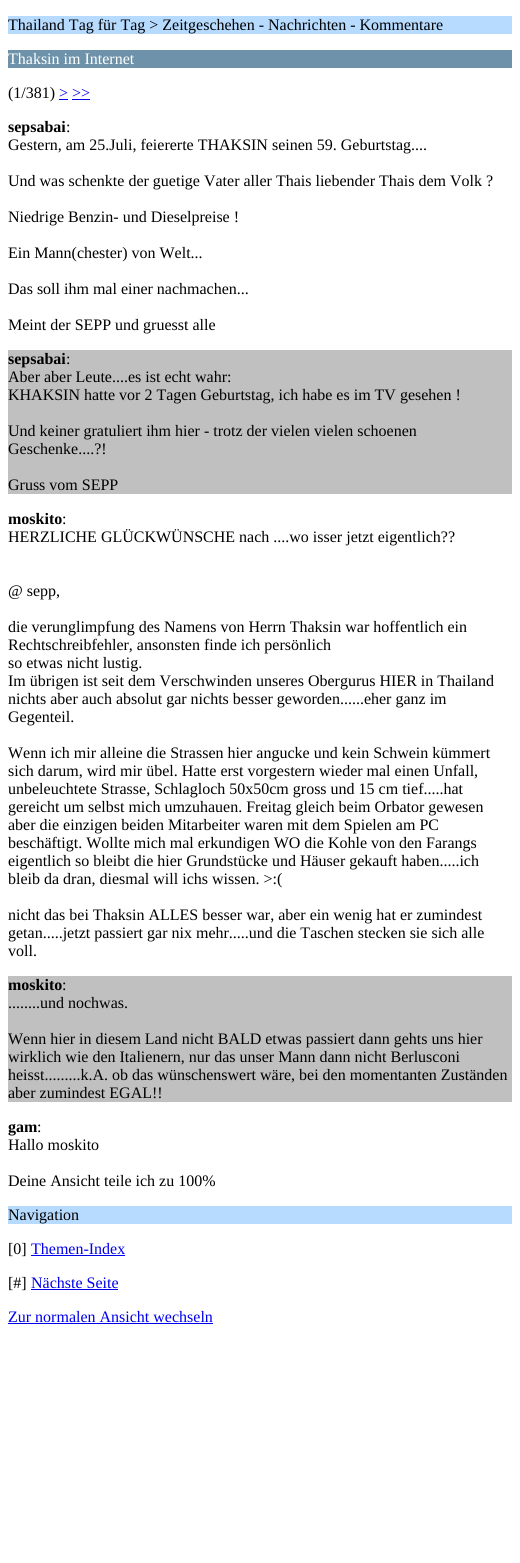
#include <cairo.h>
#include <math.h>
#include <stddef.h>


int main(void) {
    cairo_surface_t *surface = cairo_image_surface_create(CAIRO_FORMAT_RGB24, 520, 1563);
    cairo_t *cr = cairo_create(surface);
    cairo_font_options_t *options = cairo_font_options_create();
    cairo_font_options_set_hint_metrics(options, CAIRO_HINT_METRICS_OFF);
    cairo_font_options_set_hint_style(options, CAIRO_HINT_STYLE_NONE);
    cairo_set_font_options(cr, options);
    cairo_set_miter_limit(cr, 4);
    cairo_set_source_rgb(cr, 1, 1, 1);
    cairo_paint(cr);
    cairo_set_source_rgb(cr, 0.714, 0.859, 1);
    cairo_rectangle(cr, 8, 16, 504, 18);
    cairo_fill(cr);
    cairo_select_font_face(cr, "Liberation Serif", CAIRO_FONT_SLANT_NORMAL, CAIRO_FONT_WEIGHT_NORMAL);
    cairo_set_font_size(cr, 16);
    cairo_set_source_rgb(cr, 0, 0, 0);
    cairo_move_to(cr, 8, 30);
    cairo_show_text(cr, "Thailand Tag für Tag > Zeitgeschehen - Nachrichten - Kommentare");
    cairo_set_source_rgb(cr, 0.427, 0.573, 0.667);
    cairo_rectangle(cr, 8, 50, 504, 18);
    cairo_fill(cr);
    cairo_set_source_rgb(cr, 1, 1, 1);
    cairo_move_to(cr, 8, 64);
    cairo_show_text(cr, "Thaksin im Internet");
    cairo_set_source_rgb(cr, 0, 0, 0);
    cairo_move_to(cr, 8, 98);
    cairo_show_text(cr, "(1/381)");
    cairo_set_source_rgb(cr, 0, 0, 0.933);
    cairo_move_to(cr, 59, 98);
    cairo_show_text(cr, "> >>");
    cairo_rectangle(cr, 59, 99, 9, 1);
    cairo_fill(cr);
    cairo_rectangle(cr, 72, 99, 18, 1);
    cairo_fill(cr);
    cairo_select_font_face(cr, "Liberation Serif", CAIRO_FONT_SLANT_NORMAL, CAIRO_FONT_WEIGHT_BOLD);
    cairo_set_source_rgb(cr, 0, 0, 0);
    cairo_move_to(cr, 8, 132);
    cairo_show_text(cr, "sepsabai");
    cairo_select_font_face(cr, "Liberation Serif", CAIRO_FONT_SLANT_NORMAL, CAIRO_FONT_WEIGHT_NORMAL);
    cairo_move_to(cr, 66, 132);
    cairo_show_text(cr, ":");
    cairo_move_to(cr, 8, 150);
    cairo_show_text(cr, "Gestern, am 25.Juli, feiererte THAKSIN seinen 59. Geburtstag....");
    cairo_move_to(cr, 8, 186);
    cairo_show_text(cr, "Und was schenkte der guetige Vater aller Thais liebender Thais dem Volk ?");
    cairo_move_to(cr, 8, 222);
    cairo_show_text(cr, "Niedrige Benzin- und Dieselpreise !");
    cairo_move_to(cr, 8, 258);
    cairo_show_text(cr, "Ein Mann(chester) von Welt...");
    cairo_move_to(cr, 8, 294);
    cairo_show_text(cr, "Das soll ihm mal einer nachmachen...");
    cairo_move_to(cr, 8, 330);
    cairo_show_text(cr, "Meint der SEPP und gruesst alle");
    cairo_set_source_rgb(cr, 0.753, 0.753, 0.753);
    cairo_rectangle(cr, 8, 350, 504, 144);
    cairo_fill(cr);
    cairo_select_font_face(cr, "Liberation Serif", CAIRO_FONT_SLANT_NORMAL, CAIRO_FONT_WEIGHT_BOLD);
    cairo_set_source_rgb(cr, 0, 0, 0);
    cairo_move_to(cr, 8, 364);
    cairo_show_text(cr, "sepsabai");
    cairo_select_font_face(cr, "Liberation Serif", CAIRO_FONT_SLANT_NORMAL, CAIRO_FONT_WEIGHT_NORMAL);
    cairo_move_to(cr, 66, 364);
    cairo_show_text(cr, ":");
    cairo_move_to(cr, 8, 382);
    cairo_show_text(cr, "Aber aber Leute....es ist echt wahr:");
    cairo_move_to(cr, 8, 400);
    cairo_show_text(cr, "KHAKSIN hatte vor 2 Tagen Geburtstag, ich habe es im TV gesehen !");
    cairo_move_to(cr, 8, 436);
    cairo_show_text(cr, "Und keiner gratuliert ihm hier - trotz der vielen vielen schoenen");
    cairo_move_to(cr, 8, 454);
    cairo_show_text(cr, "Geschenke....?!");
    cairo_move_to(cr, 8, 490);
    cairo_show_text(cr, "Gruss vom SEPP");
    cairo_select_font_face(cr, "Liberation Serif", CAIRO_FONT_SLANT_NORMAL, CAIRO_FONT_WEIGHT_BOLD);
    cairo_move_to(cr, 8, 524);
    cairo_show_text(cr, "moskito");
    cairo_select_font_face(cr, "Liberation Serif", CAIRO_FONT_SLANT_NORMAL, CAIRO_FONT_WEIGHT_NORMAL);
    cairo_move_to(cr, 62, 524);
    cairo_show_text(cr, ":");
    cairo_move_to(cr, 8, 542);
    cairo_show_text(cr, "HERZLICHE GLÜCKWÜNSCHE nach ....wo isser jetzt eigentlich?\077");
    cairo_move_to(cr, 8, 596);
    cairo_show_text(cr, "@ sepp,");
    cairo_move_to(cr, 8, 632);
    cairo_show_text(cr, "die verunglimpfung des Namens von Herrn Thaksin war hoffentlich ein");
    cairo_move_to(cr, 8, 650);
    cairo_show_text(cr, "Rechtschreibfehler, ansonsten finde ich persönlich");
    cairo_move_to(cr, 8, 668);
    cairo_show_text(cr, "so etwas nicht lustig.");
    cairo_move_to(cr, 8, 686);
    cairo_show_text(cr, "Im übrigen ist seit dem Verschwinden unseres Obergurus HIER in Thailand");
    cairo_move_to(cr, 8, 704);
    cairo_show_text(cr, "nichts aber auch absolut gar nichts besser geworden......eher ganz im");
    cairo_move_to(cr, 8, 722);
    cairo_show_text(cr, "Gegenteil.");
    cairo_move_to(cr, 8, 758);
    cairo_show_text(cr, "Wenn ich mir alleine die Strassen hier angucke und kein Schwein kümmert");
    cairo_move_to(cr, 8, 776);
    cairo_show_text(cr, "sich darum, wird mir übel. Hatte erst vorgestern wieder mal einen Unfall,");
    cairo_move_to(cr, 8, 794);
    cairo_show_text(cr, "unbeleuchtete Strasse, Schlagloch 50x50cm gross und 15 cm tief.....hat");
    cairo_move_to(cr, 8, 812);
    cairo_show_text(cr, "gereicht um selbst mich umzuhauen. Freitag gleich beim Orbator gewesen");
    cairo_move_to(cr, 8, 830);
    cairo_show_text(cr, "aber die einzigen beiden Mitarbeiter waren mit dem Spielen am PC");
    cairo_move_to(cr, 8, 848);
    cairo_show_text(cr, "beschäftigt. Wollte mich mal erkundigen WO die Kohle von den Farangs");
    cairo_move_to(cr, 8, 866);
    cairo_show_text(cr, "eigentlich so bleibt die hier Grundstücke und Häuser gekauft haben.....ich");
    cairo_move_to(cr, 8, 884);
    cairo_show_text(cr, "bleib da dran, diesmal will ichs wissen. >:(");
    cairo_move_to(cr, 8, 920);
    cairo_show_text(cr, "nicht das bei Thaksin ALLES besser war, aber ein wenig hat er zumindest");
    cairo_move_to(cr, 8, 938);
    cairo_show_text(cr, "getan.....jetzt passiert gar nix mehr.....und die Taschen stecken sie sich alle");
    cairo_move_to(cr, 8, 956);
    cairo_show_text(cr, "voll.");
    cairo_set_source_rgb(cr, 0.753, 0.753, 0.753);
    cairo_rectangle(cr, 8, 976, 504, 126);
    cairo_fill(cr);
    cairo_select_font_face(cr, "Liberation Serif", CAIRO_FONT_SLANT_NORMAL, CAIRO_FONT_WEIGHT_BOLD);
    cairo_set_source_rgb(cr, 0, 0, 0);
    cairo_move_to(cr, 8, 990);
    cairo_show_text(cr, "moskito");
    cairo_select_font_face(cr, "Liberation Serif", CAIRO_FONT_SLANT_NORMAL, CAIRO_FONT_WEIGHT_NORMAL);
    cairo_move_to(cr, 62, 990);
    cairo_show_text(cr, ":");
    cairo_move_to(cr, 8, 1008);
    cairo_show_text(cr, "........und nochwas.");
    cairo_move_to(cr, 8, 1044);
    cairo_show_text(cr, "Wenn hier in diesem Land nicht BALD etwas passiert dann gehts uns hier");
    cairo_move_to(cr, 8, 1062);
    cairo_show_text(cr, "wirklich wie den Italienern, nur das unser Mann dann nicht Berlusconi");
    cairo_move_to(cr, 8, 1080);
    cairo_show_text(cr, "heisst.........k.A. ob das wünschenswert wäre, bei den momentanten Zuständen");
    cairo_move_to(cr, 8, 1098);
    cairo_show_text(cr, "aber zumindest EGAL!!");
    cairo_select_font_face(cr, "Liberation Serif", CAIRO_FONT_SLANT_NORMAL, CAIRO_FONT_WEIGHT_BOLD);
    cairo_move_to(cr, 8, 1132);
    cairo_show_text(cr, "gam");
    cairo_select_font_face(cr, "Liberation Serif", CAIRO_FONT_SLANT_NORMAL, CAIRO_FONT_WEIGHT_NORMAL);
    cairo_move_to(cr, 37, 1132);
    cairo_show_text(cr, ":");
    cairo_move_to(cr, 8, 1150);
    cairo_show_text(cr, "Hallo moskito");
    cairo_move_to(cr, 8, 1186);
    cairo_show_text(cr, "Deine Ansicht teile ich zu 100%");
    cairo_set_source_rgb(cr, 0.714, 0.859, 1);
    cairo_rectangle(cr, 8, 1206, 504, 18);
    cairo_fill(cr);
    cairo_set_source_rgb(cr, 0, 0, 0);
    cairo_move_to(cr, 8, 1220);
    cairo_show_text(cr, "Navigation");
    cairo_move_to(cr, 8, 1254);
    cairo_show_text(cr, "[0]");
    cairo_set_source_rgb(cr, 0, 0, 0.933);
    cairo_move_to(cr, 31, 1254);
    cairo_show_text(cr, "Themen-Index");
    cairo_rectangle(cr, 31, 1255, 94, 1);
    cairo_fill(cr);
    cairo_set_source_rgb(cr, 0, 0, 0);
    cairo_move_to(cr, 8, 1288);
    cairo_show_text(cr, "[#]");
    cairo_set_source_rgb(cr, 0, 0, 0.933);
    cairo_move_to(cr, 31, 1288);
    cairo_show_text(cr, "Nächste Seite");
    cairo_rectangle(cr, 31, 1289, 87, 1);
    cairo_fill(cr);
    cairo_move_to(cr, 8, 1322);
    cairo_show_text(cr, "Zur normalen Ansicht wechseln");
    cairo_rectangle(cr, 8, 1323, 205, 1);
    cairo_fill(cr);
    cairo_surface_write_to_png(surface, "page.png");
    cairo_font_options_destroy(options);
    cairo_destroy(cr);
    cairo_surface_destroy(surface);
    return 0;
}
